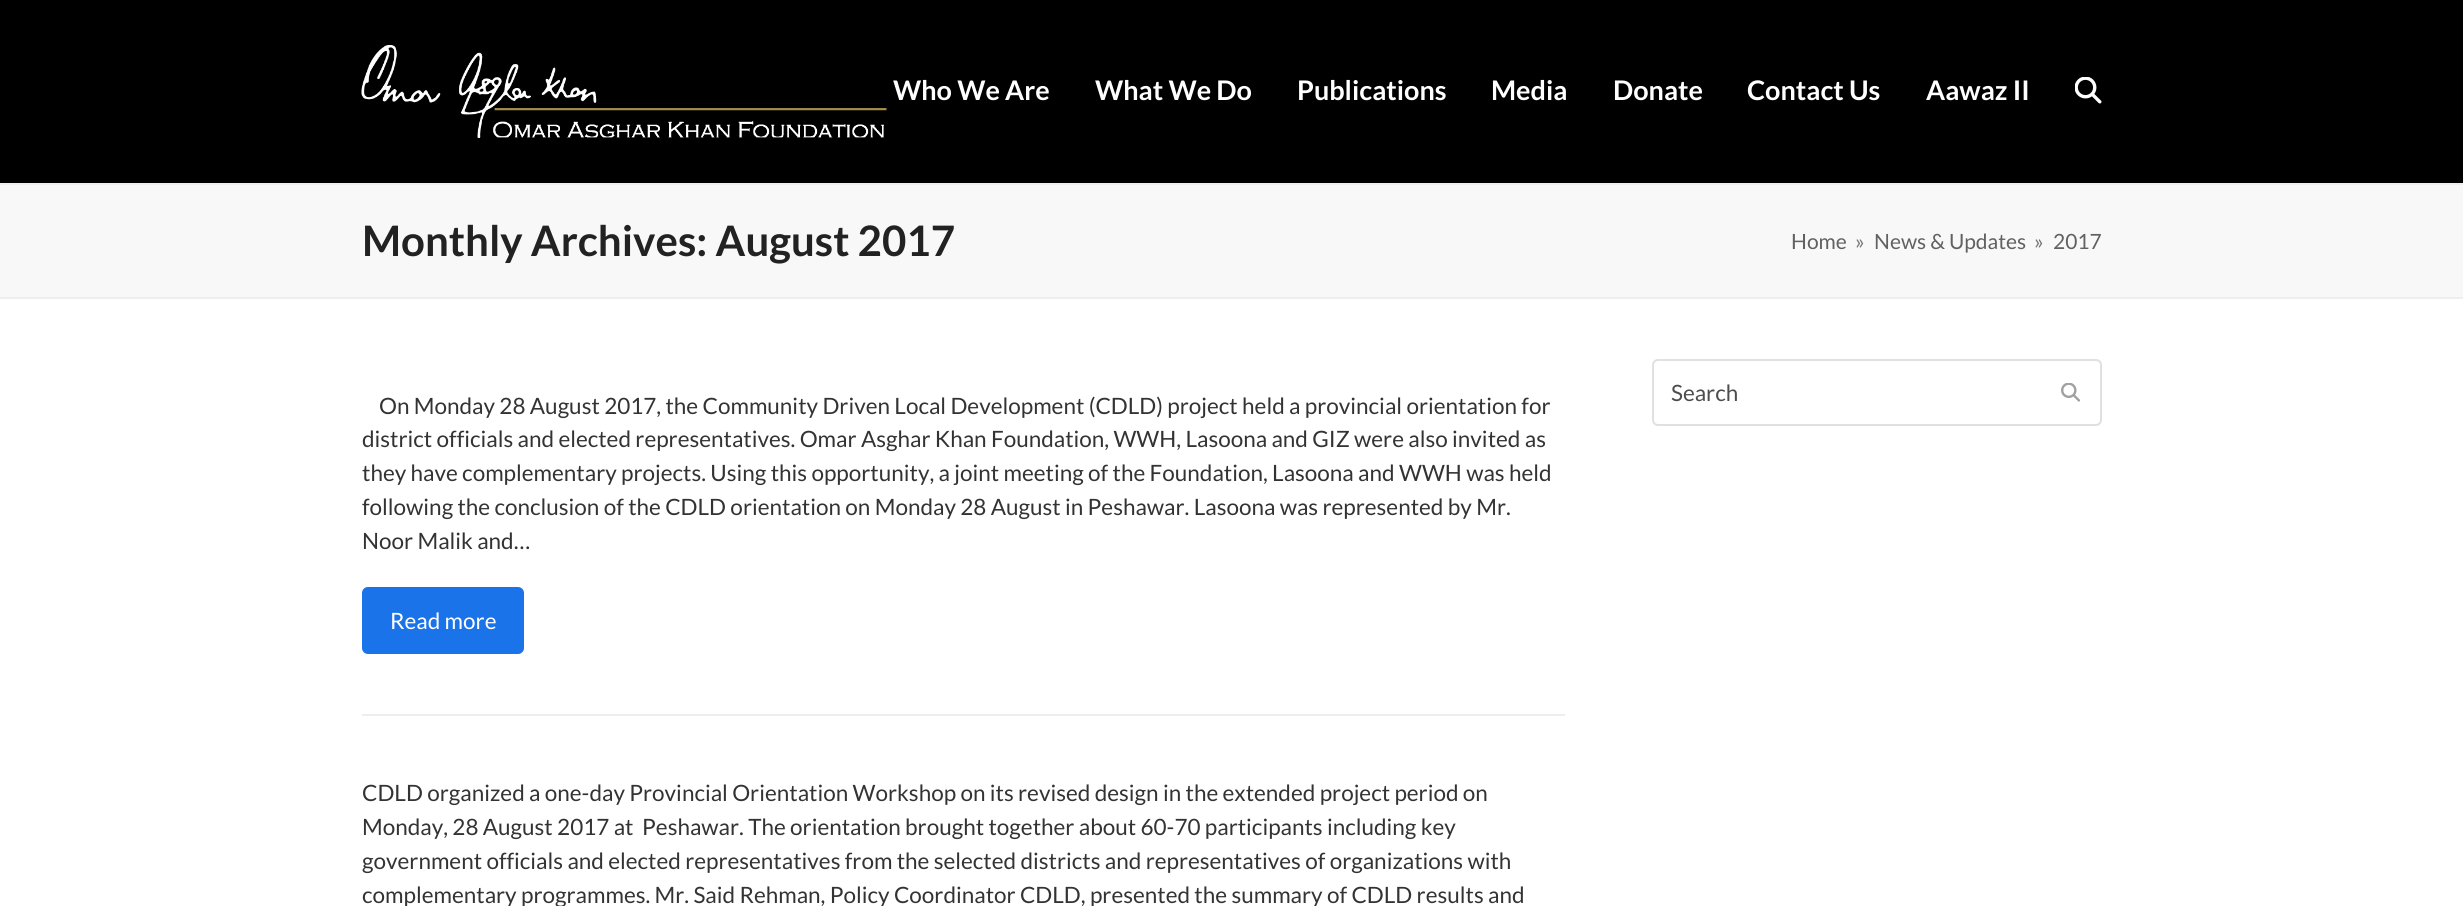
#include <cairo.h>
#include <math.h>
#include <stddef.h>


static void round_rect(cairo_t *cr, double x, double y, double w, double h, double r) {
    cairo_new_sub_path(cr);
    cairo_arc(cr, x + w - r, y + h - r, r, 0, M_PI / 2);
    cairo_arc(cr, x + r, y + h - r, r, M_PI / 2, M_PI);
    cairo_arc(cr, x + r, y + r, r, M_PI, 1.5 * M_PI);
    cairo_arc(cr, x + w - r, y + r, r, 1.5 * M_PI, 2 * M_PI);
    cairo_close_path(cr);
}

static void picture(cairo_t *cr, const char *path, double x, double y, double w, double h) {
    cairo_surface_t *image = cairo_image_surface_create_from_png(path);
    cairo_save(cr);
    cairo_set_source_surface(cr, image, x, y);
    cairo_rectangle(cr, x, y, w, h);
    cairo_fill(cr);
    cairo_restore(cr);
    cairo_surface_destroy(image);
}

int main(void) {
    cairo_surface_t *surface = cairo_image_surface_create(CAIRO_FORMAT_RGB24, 2463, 906);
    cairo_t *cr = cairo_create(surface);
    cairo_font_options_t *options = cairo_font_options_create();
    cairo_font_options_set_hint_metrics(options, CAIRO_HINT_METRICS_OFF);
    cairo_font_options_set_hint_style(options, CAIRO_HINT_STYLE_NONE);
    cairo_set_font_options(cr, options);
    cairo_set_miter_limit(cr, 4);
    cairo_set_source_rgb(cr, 1, 1, 1);
    cairo_paint(cr);
    cairo_set_source_rgb(cr, 0, 0, 0);
    cairo_rectangle(cr, 0, 0, 2463, 183);
    cairo_fill(cr);
    picture(cr, "img1.png", 361, 45, 526, 93);
    cairo_select_font_face(cr, "Lato", CAIRO_FONT_SLANT_NORMAL, CAIRO_FONT_WEIGHT_BOLD);
    cairo_set_font_size(cr, 27);
    cairo_set_source_rgb(cr, 1, 1, 1);
    cairo_move_to(cr, 893, 100);
    cairo_show_text(cr, "Who We Are");
    cairo_move_to(cr, 1095, 100);
    cairo_show_text(cr, "What We Do");
    cairo_move_to(cr, 1297, 100);
    cairo_show_text(cr, "Publications");
    cairo_move_to(cr, 1491, 100);
    cairo_show_text(cr, "Media");
    cairo_move_to(cr, 1613, 100);
    cairo_show_text(cr, "Donate");
    cairo_move_to(cr, 1747, 100);
    cairo_show_text(cr, "Contact Us");
    cairo_move_to(cr, 1926, 100);
    cairo_show_text(cr, "Aawaz II");
    picture(cr, "img2.png", 2075, 77, 27, 27);
    cairo_set_source_rgb(cr, 0.969, 0.969, 0.969);
    cairo_rectangle(cr, 0, 185, 2463, 112);
    cairo_fill(cr);
    cairo_set_source_rgb(cr, 0.933, 0.933, 0.933);
    cairo_rectangle(cr, 0, 183, 2463, 2);
    cairo_fill(cr);
    cairo_rectangle(cr, 0, 297, 2463, 2);
    cairo_fill(cr);
    cairo_set_font_size(cr, 42);
    cairo_set_source_rgb(cr, 0.133, 0.133, 0.133);
    cairo_move_to(cr, 362, 256);
    cairo_show_text(cr, "Monthly Archives: August 2017");
    cairo_select_font_face(cr, "Lato", CAIRO_FONT_SLANT_NORMAL, CAIRO_FONT_WEIGHT_NORMAL);
    cairo_set_font_size(cr, 21);
    cairo_set_source_rgb(cr, 0.38, 0.38, 0.38);
    cairo_move_to(cr, 1791, 249);
    cairo_show_text(cr, "Home");
    cairo_set_source_rgb(cr, 0.459, 0.459, 0.459);
    cairo_move_to(cr, 1855, 249);
    cairo_show_text(cr, "»");
    cairo_set_source_rgb(cr, 0.38, 0.38, 0.38);
    cairo_move_to(cr, 1874, 249);
    cairo_show_text(cr, "News & Updates");
    cairo_set_source_rgb(cr, 0.459, 0.459, 0.459);
    cairo_move_to(cr, 2034, 249);
    cairo_show_text(cr, "»");
    cairo_set_source_rgb(cr, 0.38, 0.38, 0.38);
    cairo_move_to(cr, 2053, 249);
    cairo_show_text(cr, "2017");
    round_rect(cr, 1653, 360, 448, 65, 5);
    cairo_set_source_rgb(cr, 0.878, 0.878, 0.878);
    cairo_stroke(cr);
    cairo_set_font_size(cr, 22.5);
    cairo_set_source_rgb(cr, 0.302, 0.302, 0.302);
    cairo_move_to(cr, 1671, 401);
    cairo_show_text(cr, "Search");
    picture(cr, "img3.png", 2061, 383, 20, 19);
    cairo_set_source_rgb(cr, 0.2, 0.2, 0.2);
    cairo_move_to(cr, 379, 414);
    cairo_show_text(cr, "On Monday 28 August 2017, the Community Driven Local Development (CDLD) project held a provincial orientation for");
    cairo_move_to(cr, 362, 447);
    cairo_show_text(cr, "district officials and elected representatives. Omar Asghar Khan Foundation, WWH, Lasoona and GIZ were also invited as");
    cairo_move_to(cr, 362, 481);
    cairo_show_text(cr, "they have complementary projects. Using this opportunity, a joint meeting of the Foundation, Lasoona and WWH was held");
    cairo_move_to(cr, 362, 515);
    cairo_show_text(cr, "following the conclusion of the CDLD orientation on Monday 28 August in Peshawar. Lasoona was represented by Mr.");
    cairo_move_to(cr, 362, 549);
    cairo_show_text(cr, "Noor Malik and…");
    cairo_set_source_rgb(cr, 0.102, 0.451, 0.91);
    round_rect(cr, 362, 587, 162, 67, 6);
    cairo_fill(cr);
    cairo_set_source_rgb(cr, 1, 1, 1);
    cairo_move_to(cr, 390, 629);
    cairo_show_text(cr, "Read more");
    cairo_set_source_rgb(cr, 0.933, 0.933, 0.933);
    cairo_rectangle(cr, 362, 714, 1203, 2);
    cairo_fill(cr);
    cairo_set_source_rgb(cr, 0.2, 0.2, 0.2);
    cairo_move_to(cr, 362, 801);
    cairo_show_text(cr, "CDLD organized a one-day Provincial Orientation Workshop on its revised design in the extended project period on");
    cairo_move_to(cr, 362, 835);
    cairo_show_text(cr, "Monday, 28 August 2017 at  Peshawar. The orientation brought together about 60-70 participants including key");
    cairo_move_to(cr, 362, 869);
    cairo_show_text(cr, "government officials and elected representatives from the selected districts and representatives of organizations with");
    cairo_move_to(cr, 362, 903);
    cairo_show_text(cr, "complementary programmes. Mr. Said Rehman, Policy Coordinator CDLD, presented the summary of CDLD results and");
    cairo_surface_write_to_png(surface, "page.png");
    cairo_font_options_destroy(options);
    cairo_destroy(cr);
    cairo_surface_destroy(surface);
    return 0;
}
